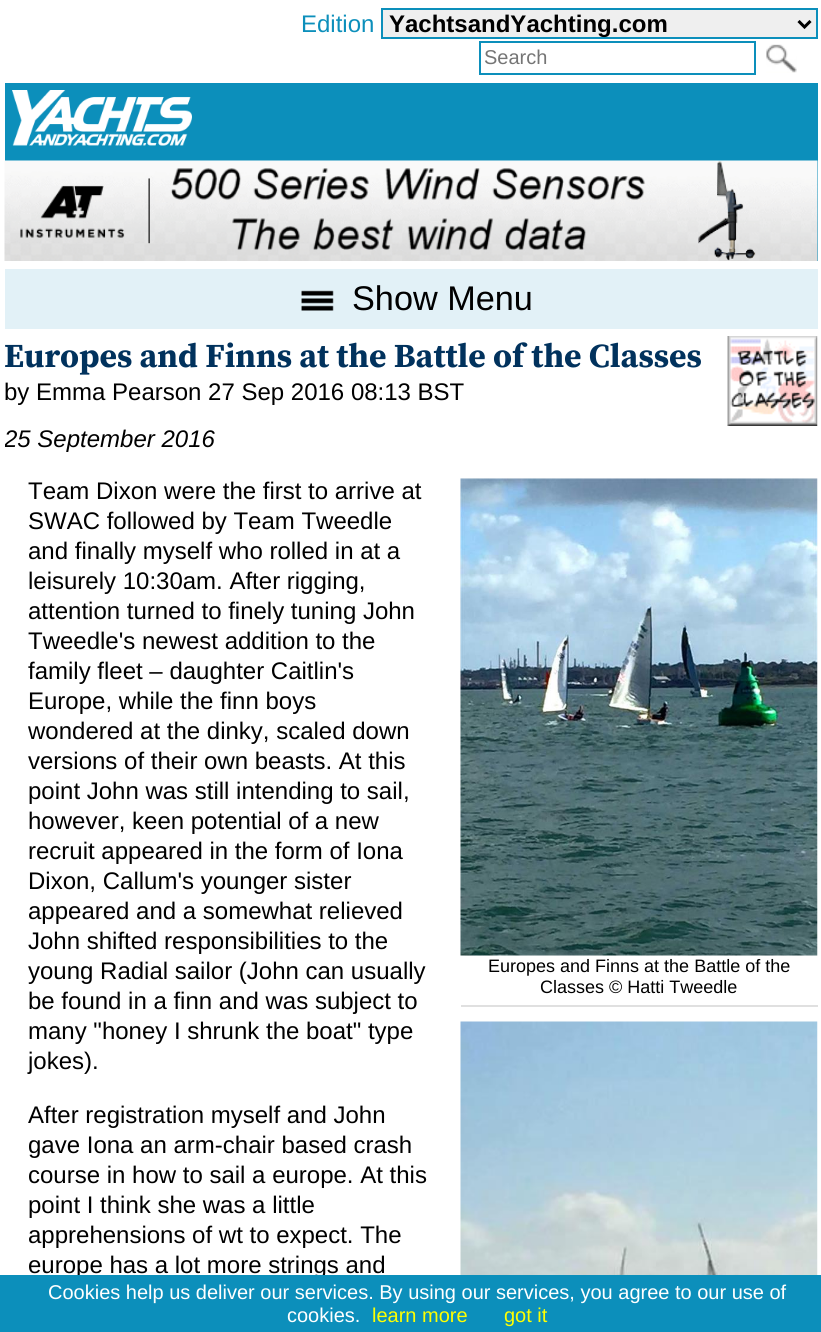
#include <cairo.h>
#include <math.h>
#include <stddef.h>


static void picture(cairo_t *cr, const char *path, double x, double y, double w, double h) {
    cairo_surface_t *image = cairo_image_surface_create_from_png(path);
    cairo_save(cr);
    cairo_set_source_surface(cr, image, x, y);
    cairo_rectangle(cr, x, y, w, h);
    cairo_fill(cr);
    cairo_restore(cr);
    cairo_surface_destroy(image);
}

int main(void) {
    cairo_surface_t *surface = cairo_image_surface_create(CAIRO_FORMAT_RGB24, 821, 1332);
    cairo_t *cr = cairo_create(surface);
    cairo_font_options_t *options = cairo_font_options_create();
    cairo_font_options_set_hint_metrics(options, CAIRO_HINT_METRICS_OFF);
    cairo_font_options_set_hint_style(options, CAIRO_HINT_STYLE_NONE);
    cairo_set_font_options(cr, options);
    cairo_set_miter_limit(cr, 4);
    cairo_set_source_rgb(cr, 1, 1, 1);
    cairo_paint(cr);
    cairo_select_font_face(cr, "Liberation Sans", CAIRO_FONT_SLANT_NORMAL, CAIRO_FONT_WEIGHT_NORMAL);
    cairo_set_font_size(cr, 24);
    cairo_set_source_rgb(cr, 0.047, 0.561, 0.733);
    cairo_move_to(cr, 301, 32);
    cairo_show_text(cr, "Edition");
    cairo_set_source_rgb(cr, 0.937, 0.937, 0.937);
    cairo_rectangle(cr, 382, 9, 435, 29);
    cairo_fill_preserve(cr);
    cairo_set_source_rgb(cr, 0.047, 0.561, 0.733);
    cairo_stroke(cr);
    cairo_new_path(cr);
    cairo_move_to(cr, 798.5, 21);
    cairo_line_to(cr, 804.5, 27);
    cairo_line_to(cr, 810.5, 21);
    cairo_set_source_rgb(cr, 0, 0, 0);
    cairo_set_line_width(cr, 3);
    cairo_stroke(cr);
    cairo_select_font_face(cr, "Liberation Sans", CAIRO_FONT_SLANT_NORMAL, CAIRO_FONT_WEIGHT_BOLD);
    cairo_move_to(cr, 389, 32);
    cairo_show_text(cr, "YachtsandYachting.com");
    cairo_rectangle(cr, 480, 42, 275, 32);
    cairo_set_source_rgb(cr, 0.047, 0.561, 0.733);
    cairo_set_line_width(cr, 2);
    cairo_stroke(cr);
    cairo_select_font_face(cr, "Liberation Sans", CAIRO_FONT_SLANT_NORMAL, CAIRO_FONT_WEIGHT_NORMAL);
    cairo_set_font_size(cr, 20);
    cairo_set_source_rgb(cr, 0.459, 0.459, 0.459);
    cairo_move_to(cr, 484, 64);
    cairo_show_text(cr, "Search");
    picture(cr, "img1.png", 766, 44, 31, 29);
    cairo_set_source_rgb(cr, 0.047, 0.561, 0.733);
    cairo_rectangle(cr, 5, 83, 813, 178);
    cairo_fill(cr);
    picture(cr, "img2.png", 12, 90, 180, 56);
    picture(cr, "img3.png", 4, 160, 814, 101);
    cairo_set_source_rgb(cr, 0.886, 0.945, 0.965);
    cairo_rectangle(cr, 5, 269, 813, 60);
    cairo_fill(cr);
    picture(cr, "img4.png", 301, 290, 33, 21);
    cairo_set_font_size(cr, 34.25);
    cairo_set_source_rgb(cr, 0, 0, 0);
    cairo_move_to(cr, 352, 310);
    cairo_show_text(cr, "Show Menu");
    cairo_select_font_face(cr, "Source Serif Pro", CAIRO_FONT_SLANT_NORMAL, CAIRO_FONT_WEIGHT_BOLD);
    cairo_set_font_size(cr, 33.6);
    cairo_set_source_rgb(cr, 0.004, 0.196, 0.365);
    cairo_move_to(cr, 4, 367);
    cairo_show_text(cr, "Europes and Finns at the Battle of the Classes");
    picture(cr, "img5.png", 727, 336, 91, 90);
    cairo_select_font_face(cr, "Liberation Sans", CAIRO_FONT_SLANT_NORMAL, CAIRO_FONT_WEIGHT_NORMAL);
    cairo_set_font_size(cr, 24);
    cairo_set_source_rgb(cr, 0, 0, 0);
    cairo_move_to(cr, 4, 400);
    cairo_show_text(cr, "by Emma Pearson 27 Sep 2016 08:13 BST");
    cairo_save(cr);
    cairo_rectangle(cr, 5, 336, 813, 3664);
    cairo_clip(cr);
    cairo_select_font_face(cr, "Liberation Sans", CAIRO_FONT_SLANT_ITALIC, CAIRO_FONT_WEIGHT_NORMAL);
    cairo_move_to(cr, 4, 447);
    cairo_show_text(cr, "25 September 2016");
    cairo_restore(cr);
    cairo_move_to(cr, 28, 499);
    cairo_show_text(cr, "Team Dixon were the first to arrive at");
    cairo_move_to(cr, 28, 529);
    cairo_show_text(cr, "SWAC followed by Team Tweedle");
    cairo_move_to(cr, 28, 559);
    cairo_show_text(cr, "and finally myself who rolled in at a");
    cairo_move_to(cr, 28, 589);
    cairo_show_text(cr, "leisurely 10:30am. After rigging,");
    cairo_move_to(cr, 28, 619);
    cairo_show_text(cr, "attention turned to finely tuning John");
    cairo_move_to(cr, 28, 649);
    cairo_show_text(cr, "Tweedle's newest addition to the");
    cairo_move_to(cr, 28, 679);
    cairo_show_text(cr, "family fleet – daughter Caitlin's");
    cairo_move_to(cr, 28, 709);
    cairo_show_text(cr, "Europe, while the finn boys");
    cairo_move_to(cr, 28, 739);
    cairo_show_text(cr, "wondered at the dinky, scaled down");
    cairo_move_to(cr, 28, 769);
    cairo_show_text(cr, "versions of their own beasts. At this");
    cairo_move_to(cr, 28, 799);
    cairo_show_text(cr, "point John was still intending to sail,");
    cairo_move_to(cr, 28, 829);
    cairo_show_text(cr, "however, keen potential of a new");
    cairo_move_to(cr, 28, 859);
    cairo_show_text(cr, "recruit appeared in the form of Iona");
    cairo_move_to(cr, 28, 889);
    cairo_show_text(cr, "Dixon, Callum's younger sister");
    cairo_move_to(cr, 28, 919);
    cairo_show_text(cr, "appeared and a somewhat relieved");
    cairo_move_to(cr, 28, 949);
    cairo_show_text(cr, "John shifted responsibilities to the");
    cairo_move_to(cr, 28, 979);
    cairo_show_text(cr, "young Radial sailor (John can usually");
    cairo_move_to(cr, 28, 1009);
    cairo_show_text(cr, "be found in a finn and was subject to");
    cairo_move_to(cr, 28, 1039);
    cairo_show_text(cr, "many \"honey I shrunk the boat\" type");
    cairo_move_to(cr, 28, 1069);
    cairo_show_text(cr, "jokes).");
    cairo_set_source_rgb(cr, 0.878, 0.878, 0.878);
    cairo_rectangle(cr, 461, 1005, 357, 2);
    cairo_fill(cr);
    picture(cr, "img6.png", 460, 478, 358, 478);
    cairo_set_font_size(cr, 18);
    cairo_set_source_rgb(cr, 0, 0, 0);
    cairo_move_to(cr, 488, 972);
    cairo_show_text(cr, "Europes and Finns at the Battle of the");
    cairo_move_to(cr, 540, 993);
    cairo_show_text(cr, "Classes © Hatti Tweedle");
    picture(cr, "img7.png", 460, 1021, 358, 254);
    cairo_set_font_size(cr, 24);
    cairo_move_to(cr, 28, 1123);
    cairo_show_text(cr, "After registration myself and John");
    cairo_move_to(cr, 28, 1153);
    cairo_show_text(cr, "gave Iona an arm-chair based crash");
    cairo_move_to(cr, 28, 1183);
    cairo_show_text(cr, "course in how to sail a europe. At this");
    cairo_move_to(cr, 28, 1213);
    cairo_show_text(cr, "point I think she was a little");
    cairo_move_to(cr, 28, 1243);
    cairo_show_text(cr, "apprehensions of wt to expect. The");
    cairo_move_to(cr, 28, 1273);
    cairo_show_text(cr, "europe has a lot more strings and");
    cairo_set_source_rgb(cr, 0.047, 0.561, 0.733);
    cairo_rectangle(cr, 0, 1275, 821, 57);
    cairo_fill(cr);
    cairo_set_font_size(cr, 20);
    cairo_set_source_rgb(cr, 1, 1, 1);
    cairo_move_to(cr, 48, 1299);
    cairo_show_text(cr, "Cookies help us deliver our services. By using our services, you agree to our use of");
    cairo_move_to(cr, 287, 1322);
    cairo_show_text(cr, "cookies.");
    cairo_set_source_rgb(cr, 1, 1, 0);
    cairo_move_to(cr, 372, 1322);
    cairo_show_text(cr, "learn more");
    cairo_move_to(cr, 504, 1322);
    cairo_show_text(cr, "got it");
    cairo_surface_write_to_png(surface, "page.png");
    cairo_font_options_destroy(options);
    cairo_destroy(cr);
    cairo_surface_destroy(surface);
    return 0;
}
